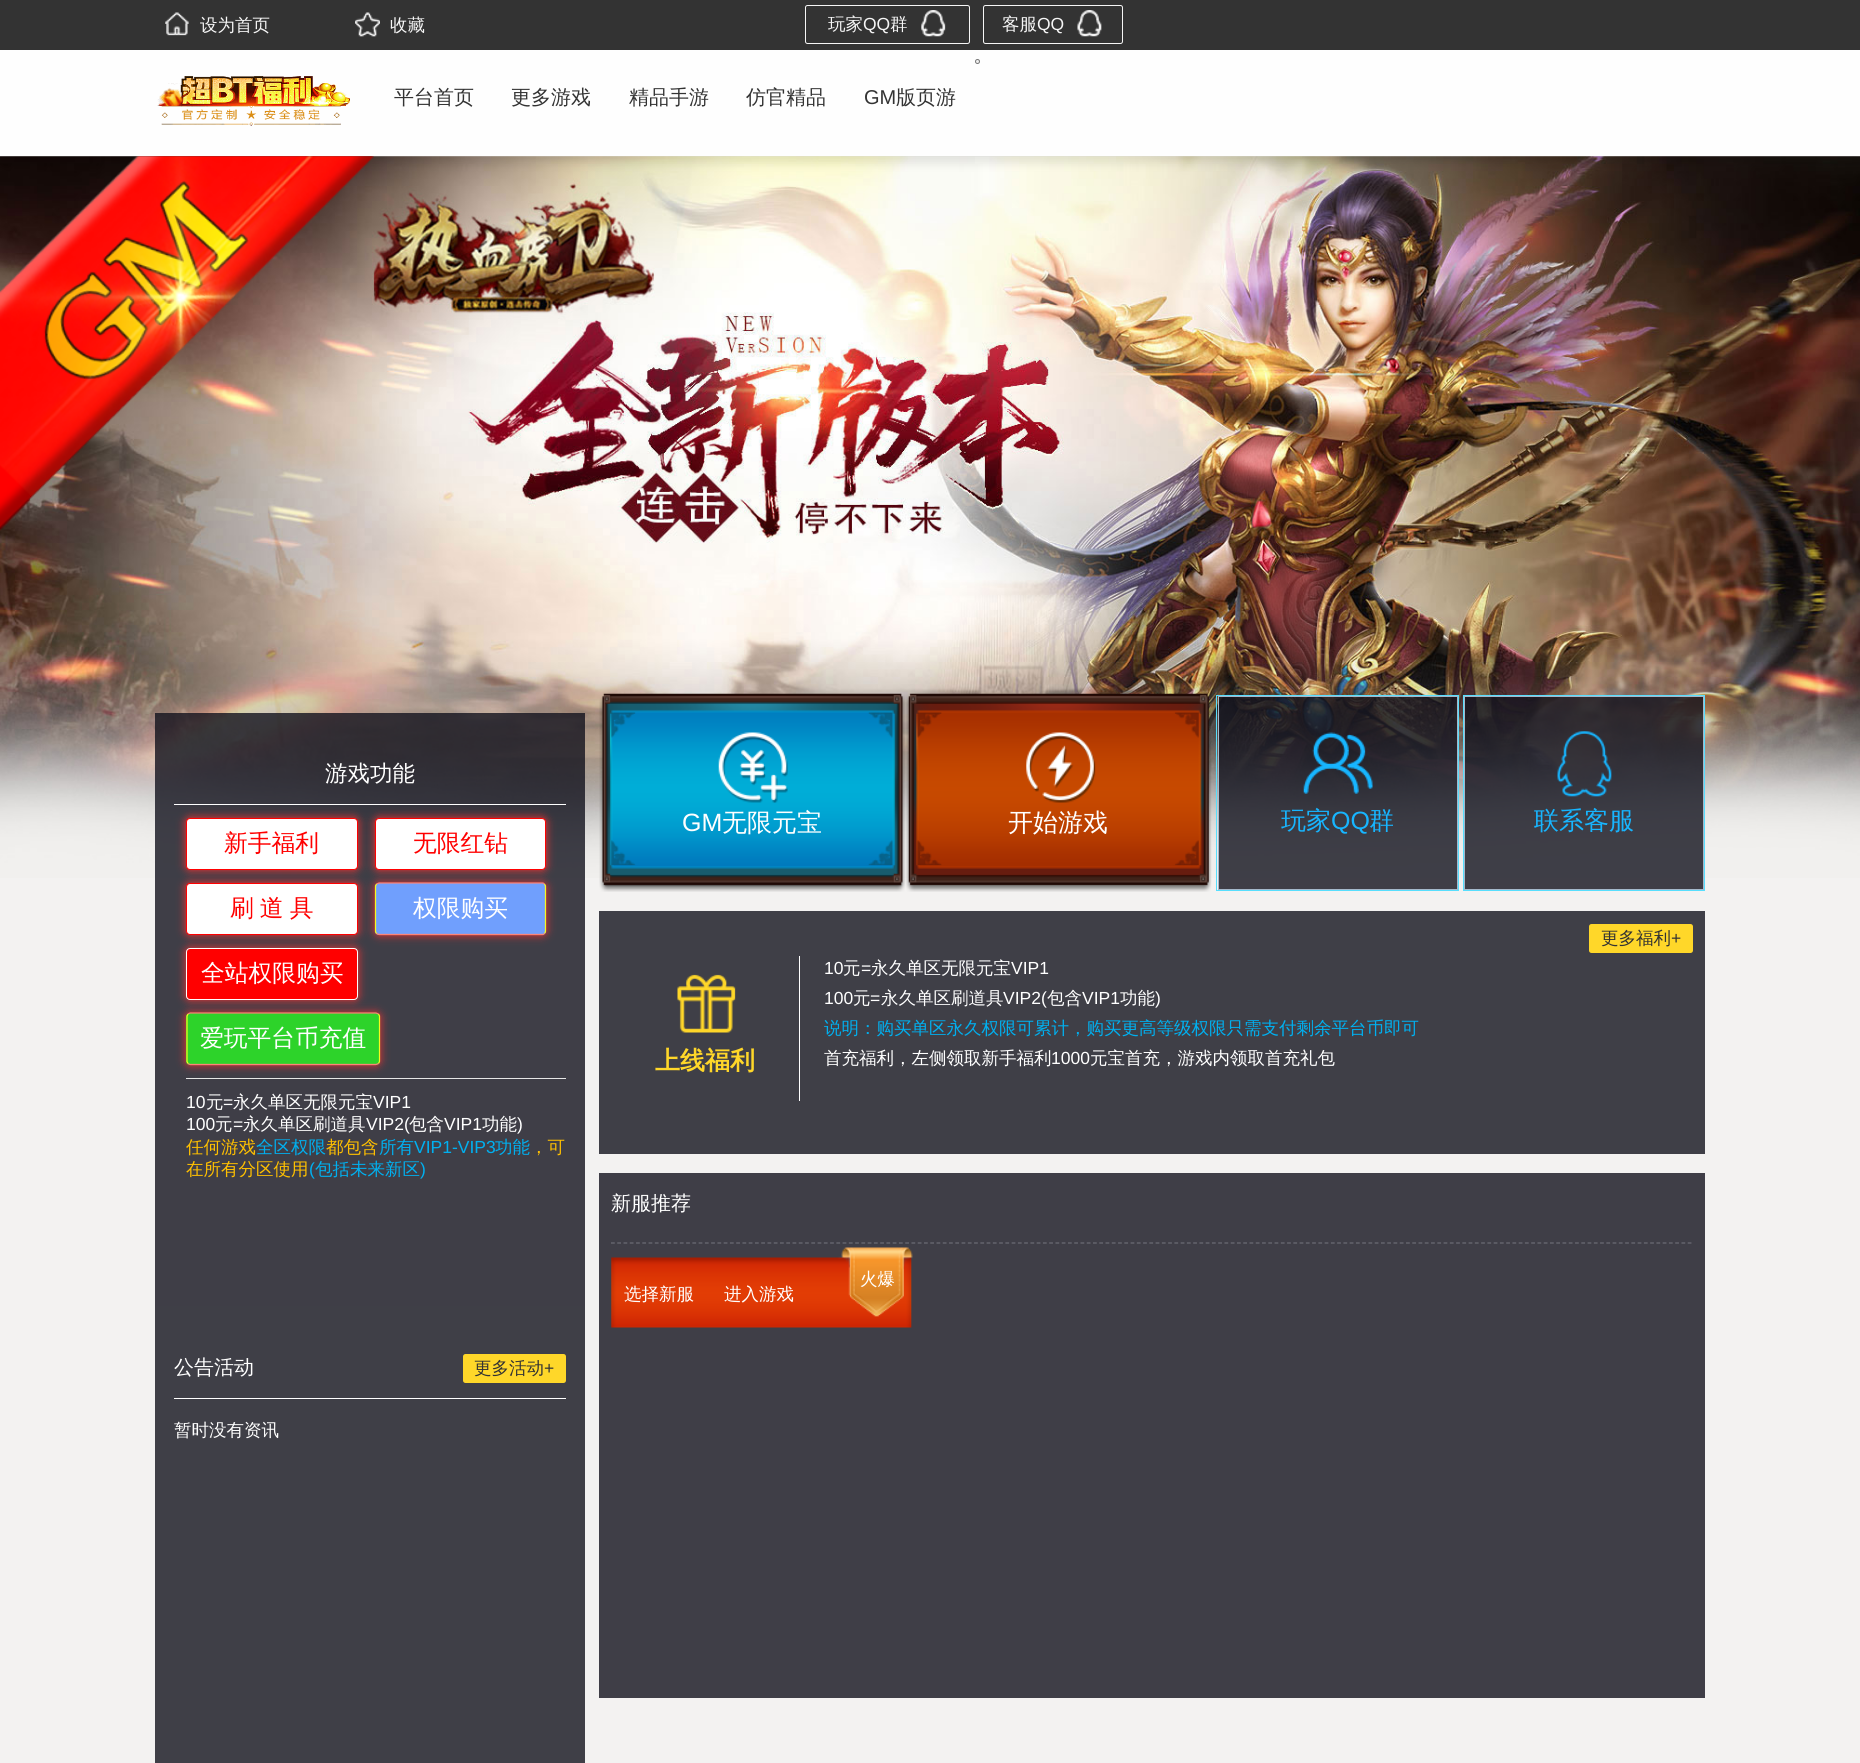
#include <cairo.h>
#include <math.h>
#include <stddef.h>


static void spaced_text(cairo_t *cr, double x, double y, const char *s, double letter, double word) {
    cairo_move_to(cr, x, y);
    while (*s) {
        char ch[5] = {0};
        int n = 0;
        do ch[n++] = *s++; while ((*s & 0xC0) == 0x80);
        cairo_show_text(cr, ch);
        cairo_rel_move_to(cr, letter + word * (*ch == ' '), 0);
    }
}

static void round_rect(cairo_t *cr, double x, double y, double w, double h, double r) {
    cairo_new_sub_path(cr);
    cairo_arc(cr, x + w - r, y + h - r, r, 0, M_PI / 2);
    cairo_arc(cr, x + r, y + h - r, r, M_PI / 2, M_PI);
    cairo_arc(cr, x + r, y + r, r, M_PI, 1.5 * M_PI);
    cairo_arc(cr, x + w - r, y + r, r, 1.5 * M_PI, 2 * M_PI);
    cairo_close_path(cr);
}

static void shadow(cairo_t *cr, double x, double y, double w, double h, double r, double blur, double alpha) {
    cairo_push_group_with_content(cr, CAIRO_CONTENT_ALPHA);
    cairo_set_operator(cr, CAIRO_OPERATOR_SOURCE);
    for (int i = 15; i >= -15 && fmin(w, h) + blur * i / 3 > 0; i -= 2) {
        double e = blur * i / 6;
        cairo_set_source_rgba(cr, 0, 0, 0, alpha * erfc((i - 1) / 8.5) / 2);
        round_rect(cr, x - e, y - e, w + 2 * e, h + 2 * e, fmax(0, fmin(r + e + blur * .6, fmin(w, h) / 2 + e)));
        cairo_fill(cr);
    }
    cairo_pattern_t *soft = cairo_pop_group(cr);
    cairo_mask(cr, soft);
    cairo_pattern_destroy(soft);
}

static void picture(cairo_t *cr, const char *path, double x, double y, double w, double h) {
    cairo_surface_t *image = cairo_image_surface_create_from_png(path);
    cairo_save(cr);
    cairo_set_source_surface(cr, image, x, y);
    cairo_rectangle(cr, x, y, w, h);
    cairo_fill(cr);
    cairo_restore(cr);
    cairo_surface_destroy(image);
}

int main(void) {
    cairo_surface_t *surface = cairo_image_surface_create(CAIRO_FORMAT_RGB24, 1860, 1763);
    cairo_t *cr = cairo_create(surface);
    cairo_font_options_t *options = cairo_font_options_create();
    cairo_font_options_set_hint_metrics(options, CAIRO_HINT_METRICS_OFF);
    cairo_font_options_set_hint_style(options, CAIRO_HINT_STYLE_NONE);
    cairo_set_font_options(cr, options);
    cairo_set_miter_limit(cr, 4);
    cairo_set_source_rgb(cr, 0.953, 0.949, 0.945);
    cairo_paint(cr);
    picture(cr, "img1.png", 0, 156, 1860, 722);
    cairo_set_source_rgb(cr, 0.2, 0.2, 0.2);
    cairo_rectangle(cr, 0, 0, 1860, 50);
    cairo_fill(cr);
    picture(cr, "img2.png", 165, 12, 24, 24);
    cairo_select_font_face(cr, "WenQuanYi Zen Hei Medium", CAIRO_FONT_SLANT_NORMAL, CAIRO_FONT_WEIGHT_NORMAL);
    cairo_set_font_size(cr, 17.5);
    cairo_set_source_rgb(cr, 0.961, 0.961, 0.961);
    cairo_move_to(cr, 200, 31);
    cairo_show_text(cr, "设为首页");
    picture(cr, "img3.png", 355, 12, 25, 25);
    cairo_move_to(cr, 390, 31);
    cairo_show_text(cr, "收藏");
    cairo_set_source_rgb(cr, 0, 0, 0);
    shadow(cr, 0, 56, 1860, 107, 0, 5, 0.1);
    round_rect(cr, 805.5, 5.5, 164, 38, 2);
    cairo_set_source_rgb(cr, 0.961, 0.961, 0.961);
    cairo_set_line_width(cr, 1);
    cairo_stroke(cr);
    cairo_move_to(cr, 828, 30);
    cairo_show_text(cr, "玩家");
    cairo_select_font_face(cr, "Liberation Sans", CAIRO_FONT_SLANT_NORMAL, CAIRO_FONT_WEIGHT_NORMAL);
    cairo_move_to(cr, 863, 30);
    cairo_show_text(cr, "QQ");
    cairo_select_font_face(cr, "WenQuanYi Zen Hei Medium", CAIRO_FONT_SLANT_NORMAL, CAIRO_FONT_WEIGHT_NORMAL);
    cairo_move_to(cr, 890, 30);
    cairo_show_text(cr, "群");
    picture(cr, "img4.png", 921, 10, 25, 27);
    round_rect(cr, 983.5, 5.5, 139, 38, 2);
    cairo_stroke(cr);
    cairo_move_to(cr, 1002, 30);
    cairo_show_text(cr, "客服");
    cairo_select_font_face(cr, "Liberation Sans", CAIRO_FONT_SLANT_NORMAL, CAIRO_FONT_WEIGHT_NORMAL);
    cairo_move_to(cr, 1037, 30);
    cairo_show_text(cr, "QQ");
    picture(cr, "img5.png", 1077, 10, 25, 27);
    cairo_set_source_rgb(cr, 0.996, 0.996, 0.996);
    cairo_rectangle(cr, 0, 50, 1860, 106);
    cairo_fill(cr);
    cairo_set_source_rgb(cr, 0.937, 0.937, 0.937);
    cairo_arc(cr, 977.5, 61.5, 2, 0, 2 * M_PI);
    cairo_fill_preserve(cr);
    cairo_set_source_rgb(cr, 0.463, 0.463, 0.463);
    cairo_stroke(cr);
    picture(cr, "img6.png", 157, 76, 193, 50);
    cairo_select_font_face(cr, "WenQuanYi Zen Hei Medium", CAIRO_FONT_SLANT_NORMAL, CAIRO_FONT_WEIGHT_NORMAL);
    cairo_set_font_size(cr, 20);
    cairo_set_source_rgb(cr, 0.2, 0.2, 0.2);
    cairo_move_to(cr, 394, 104);
    cairo_show_text(cr, "平台首页");
    cairo_move_to(cr, 511, 104);
    cairo_show_text(cr, "更多游戏");
    cairo_move_to(cr, 629, 104);
    cairo_show_text(cr, "精品手游");
    cairo_move_to(cr, 746, 104);
    cairo_show_text(cr, "仿官精品");
    cairo_select_font_face(cr, "Liberation Sans", CAIRO_FONT_SLANT_NORMAL, CAIRO_FONT_WEIGHT_NORMAL);
    cairo_move_to(cr, 864, 104);
    cairo_show_text(cr, "GM");
    cairo_select_font_face(cr, "WenQuanYi Zen Hei Medium", CAIRO_FONT_SLANT_NORMAL, CAIRO_FONT_WEIGHT_NORMAL);
    cairo_move_to(cr, 896, 104);
    cairo_show_text(cr, "版页游");
    picture(cr, "img7.png", 0, 156, 374, 375);
    cairo_set_source_rgba(cr, 0.071, 0.071, 0.114, 0.8);
    cairo_rectangle(cr, 155, 713, 430, 593);
    cairo_fill(cr);
    cairo_set_source_rgb(cr, 1, 1, 1);
    cairo_rectangle(cr, 174, 804, 392, 1);
    cairo_fill(cr);
    cairo_set_font_size(cr, 22.5);
    cairo_move_to(cr, 325, 781);
    cairo_show_text(cr, "游戏功能");
    cairo_set_source_rgb(cr, 0.992, 0.196, 0.196);
    shadow(cr, 186, 818, 172, 52, 4, 4.5, 1);
    cairo_set_source_rgb(cr, 1, 1, 1);
    round_rect(cr, 186.5, 818.5, 171, 51, 3.5);
    cairo_fill_preserve(cr);
    cairo_set_source_rgb(cr, 1, 0, 0);
    cairo_stroke(cr);
    cairo_set_font_size(cr, 23.75);
    cairo_move_to(cr, 224, 851);
    cairo_show_text(cr, "新手福利");
    cairo_set_source_rgb(cr, 0.992, 0.196, 0.196);
    shadow(cr, 375, 818, 171, 52, 4, 4.5, 1);
    cairo_set_source_rgb(cr, 1, 1, 1);
    round_rect(cr, 375.5, 818.5, 170, 51, 3.5);
    cairo_fill_preserve(cr);
    cairo_set_source_rgb(cr, 1, 0, 0);
    cairo_stroke(cr);
    cairo_move_to(cr, 413, 851);
    cairo_show_text(cr, "无限红钻");
    cairo_set_source_rgb(cr, 0.992, 0.196, 0.196);
    shadow(cr, 186, 883, 172, 52, 4, 4.5, 1);
    cairo_set_source_rgb(cr, 1, 1, 1);
    round_rect(cr, 186.5, 883.5, 171, 51, 3.5);
    cairo_fill_preserve(cr);
    cairo_set_source_rgb(cr, 1, 0, 0);
    cairo_stroke(cr);
    spaced_text(cr, 230, 916, "刷 道 具", 0, -1);
    cairo_set_source_rgb(cr, 0.992, 0.196, 0.196);
    shadow(cr, 375, 883, 171, 52, 4, 4.5, 1);
    cairo_set_source_rgb(cr, 0.439, 0.624, 0.992);
    round_rect(cr, 375, 883, 171, 52, 4);
    cairo_fill(cr);
    cairo_new_path(cr);
    cairo_move_to(cr, 376.5, 884);
    cairo_line_to(cr, 379, 883);
    cairo_line_to(cr, 543, 883);
    cairo_line_to(cr, 544.5, 884);
    cairo_set_source_rgb(cr, 0.988, 0.518, 0.467);
    cairo_set_line_width(cr, 1.2);
    cairo_stroke(cr);
    cairo_new_path(cr);
    cairo_move_to(cr, 544.5, 884);
    cairo_line_to(cr, 545.5, 886);
    cairo_line_to(cr, 545.5, 931.5);
    cairo_line_to(cr, 544.5, 933.5);
    cairo_set_source_rgb(cr, 0.957, 0.984, 0.122);
    cairo_stroke(cr);
    cairo_new_path(cr);
    cairo_move_to(cr, 544.5, 933.5);
    cairo_line_to(cr, 543, 934.5);
    cairo_line_to(cr, 406, 934.5);
    cairo_line_to(cr, 379, 934.5);
    cairo_line_to(cr, 376.5, 933.5);
    cairo_set_source_rgb(cr, 0.988, 0.518, 0.467);
    cairo_stroke(cr);
    cairo_new_path(cr);
    cairo_move_to(cr, 376.5, 933.5);
    cairo_line_to(cr, 375.5, 931.5);
    cairo_line_to(cr, 375.5, 886);
    cairo_line_to(cr, 376.5, 884);
    cairo_set_source_rgb(cr, 0.957, 0.984, 0.122);
    cairo_stroke(cr);
    cairo_set_source_rgb(cr, 1, 1, 1);
    cairo_move_to(cr, 413, 916);
    cairo_show_text(cr, "权限购买");
    cairo_set_source_rgb(cr, 0.992, 0.196, 0.196);
    shadow(cr, 186, 948, 172, 52, 4, 4.5, 1);
    cairo_set_source_rgb(cr, 1, 0, 0);
    round_rect(cr, 186.5, 948.5, 171, 51, 3.5);
    cairo_fill_preserve(cr);
    cairo_set_source_rgb(cr, 1, 1, 1);
    cairo_set_line_width(cr, 1);
    cairo_stroke(cr);
    cairo_move_to(cr, 201, 981);
    cairo_show_text(cr, "全站权限购买");
    cairo_set_source_rgb(cr, 0.992, 0.196, 0.196);
    shadow(cr, 186, 1013, 194, 52, 4, 4.5, 1);
    cairo_set_source_rgb(cr, 0.176, 0.827, 0.165);
    round_rect(cr, 186, 1013, 194, 52, 4);
    cairo_fill(cr);
    cairo_new_path(cr);
    cairo_move_to(cr, 188, 1014);
    cairo_line_to(cr, 190, 1013);
    cairo_line_to(cr, 376, 1013);
    cairo_line_to(cr, 378.5, 1014);
    cairo_set_source_rgb(cr, 0.988, 0.518, 0.467);
    cairo_set_line_width(cr, 1.2);
    cairo_stroke(cr);
    cairo_new_path(cr);
    cairo_move_to(cr, 378.5, 1014);
    cairo_line_to(cr, 379.5, 1016);
    cairo_line_to(cr, 379.5, 1061.5);
    cairo_line_to(cr, 378.5, 1063.5);
    cairo_set_source_rgb(cr, 0.957, 0.984, 0.122);
    cairo_stroke(cr);
    cairo_new_path(cr);
    cairo_move_to(cr, 378.5, 1063.5);
    cairo_line_to(cr, 376, 1064.5);
    cairo_line_to(cr, 190, 1064.5);
    cairo_line_to(cr, 188, 1063.5);
    cairo_set_source_rgb(cr, 0.988, 0.518, 0.467);
    cairo_stroke(cr);
    cairo_new_path(cr);
    cairo_move_to(cr, 188, 1063.5);
    cairo_line_to(cr, 187, 1061.5);
    cairo_line_to(cr, 187, 1016);
    cairo_line_to(cr, 188, 1014);
    cairo_set_source_rgb(cr, 0.957, 0.984, 0.122);
    cairo_stroke(cr);
    cairo_set_source_rgb(cr, 1, 1, 1);
    cairo_move_to(cr, 200, 1046);
    cairo_show_text(cr, "爱玩平台币充值");
    cairo_set_source_rgb(cr, 0.902, 0.902, 0.902);
    cairo_rectangle(cr, 186, 1078, 380, 1);
    cairo_fill(cr);
    cairo_select_font_face(cr, "Liberation Sans", CAIRO_FONT_SLANT_NORMAL, CAIRO_FONT_WEIGHT_NORMAL);
    cairo_set_font_size(cr, 17.5);
    cairo_set_source_rgb(cr, 1, 1, 1);
    cairo_move_to(cr, 186, 1108);
    cairo_show_text(cr, "10");
    cairo_select_font_face(cr, "WenQuanYi Zen Hei Medium", CAIRO_FONT_SLANT_NORMAL, CAIRO_FONT_WEIGHT_NORMAL);
    cairo_move_to(cr, 206, 1108);
    cairo_show_text(cr, "元");
    cairo_select_font_face(cr, "Liberation Sans", CAIRO_FONT_SLANT_NORMAL, CAIRO_FONT_WEIGHT_NORMAL);
    cairo_move_to(cr, 223, 1108);
    cairo_show_text(cr, "=");
    cairo_select_font_face(cr, "WenQuanYi Zen Hei Medium", CAIRO_FONT_SLANT_NORMAL, CAIRO_FONT_WEIGHT_NORMAL);
    cairo_move_to(cr, 233, 1108);
    cairo_show_text(cr, "永久单区无限元宝");
    cairo_select_font_face(cr, "Liberation Sans", CAIRO_FONT_SLANT_NORMAL, CAIRO_FONT_WEIGHT_NORMAL);
    cairo_move_to(cr, 373, 1108);
    cairo_show_text(cr, "VIP1");
    cairo_move_to(cr, 186, 1130);
    cairo_show_text(cr, "100");
    cairo_select_font_face(cr, "WenQuanYi Zen Hei Medium", CAIRO_FONT_SLANT_NORMAL, CAIRO_FONT_WEIGHT_NORMAL);
    cairo_move_to(cr, 215, 1130);
    cairo_show_text(cr, "元");
    cairo_select_font_face(cr, "Liberation Sans", CAIRO_FONT_SLANT_NORMAL, CAIRO_FONT_WEIGHT_NORMAL);
    cairo_move_to(cr, 233, 1130);
    cairo_show_text(cr, "=");
    cairo_select_font_face(cr, "WenQuanYi Zen Hei Medium", CAIRO_FONT_SLANT_NORMAL, CAIRO_FONT_WEIGHT_NORMAL);
    cairo_move_to(cr, 243, 1130);
    cairo_show_text(cr, "永久单区刷道具");
    cairo_select_font_face(cr, "Liberation Sans", CAIRO_FONT_SLANT_NORMAL, CAIRO_FONT_WEIGHT_NORMAL);
    cairo_move_to(cr, 366, 1130);
    cairo_show_text(cr, "VIP2(");
    cairo_select_font_face(cr, "WenQuanYi Zen Hei Medium", CAIRO_FONT_SLANT_NORMAL, CAIRO_FONT_WEIGHT_NORMAL);
    cairo_move_to(cr, 409, 1130);
    cairo_show_text(cr, "包含");
    cairo_select_font_face(cr, "Liberation Sans", CAIRO_FONT_SLANT_NORMAL, CAIRO_FONT_WEIGHT_NORMAL);
    cairo_move_to(cr, 444, 1130);
    cairo_show_text(cr, "VIP1");
    cairo_select_font_face(cr, "WenQuanYi Zen Hei Medium", CAIRO_FONT_SLANT_NORMAL, CAIRO_FONT_WEIGHT_NORMAL);
    cairo_move_to(cr, 482, 1130);
    cairo_show_text(cr, "功能");
    cairo_select_font_face(cr, "Liberation Sans", CAIRO_FONT_SLANT_NORMAL, CAIRO_FONT_WEIGHT_NORMAL);
    cairo_move_to(cr, 517, 1130);
    cairo_show_text(cr, ")");
    cairo_select_font_face(cr, "WenQuanYi Zen Hei Medium", CAIRO_FONT_SLANT_NORMAL, CAIRO_FONT_WEIGHT_NORMAL);
    cairo_set_source_rgb(cr, 1, 0.753, 0);
    cairo_move_to(cr, 186, 1153);
    cairo_show_text(cr, "任何游戏");
    cairo_set_source_rgb(cr, 0, 0.69, 0.941);
    cairo_move_to(cr, 256, 1153);
    cairo_show_text(cr, "全区权限");
    cairo_set_source_rgb(cr, 1, 0.753, 0);
    cairo_move_to(cr, 326, 1153);
    cairo_show_text(cr, "都包含");
    cairo_set_source_rgb(cr, 0, 0.69, 0.941);
    cairo_move_to(cr, 379, 1153);
    cairo_show_text(cr, "所有");
    cairo_select_font_face(cr, "Liberation Sans", CAIRO_FONT_SLANT_NORMAL, CAIRO_FONT_WEIGHT_NORMAL);
    cairo_move_to(cr, 414, 1153);
    cairo_show_text(cr, "VIP1-VIP3");
    cairo_select_font_face(cr, "WenQuanYi Zen Hei Medium", CAIRO_FONT_SLANT_NORMAL, CAIRO_FONT_WEIGHT_NORMAL);
    cairo_move_to(cr, 495, 1153);
    cairo_show_text(cr, "功能");
    cairo_set_source_rgb(cr, 1, 0.753, 0);
    cairo_move_to(cr, 530, 1153);
    cairo_show_text(cr, "，可");
    cairo_move_to(cr, 186, 1175);
    cairo_show_text(cr, "在所有分区使用");
    cairo_select_font_face(cr, "Liberation Sans", CAIRO_FONT_SLANT_NORMAL, CAIRO_FONT_WEIGHT_NORMAL);
    cairo_set_source_rgb(cr, 0, 0.69, 0.941);
    cairo_move_to(cr, 309, 1175);
    cairo_show_text(cr, "(");
    cairo_select_font_face(cr, "WenQuanYi Zen Hei Medium", CAIRO_FONT_SLANT_NORMAL, CAIRO_FONT_WEIGHT_NORMAL);
    cairo_move_to(cr, 315, 1175);
    cairo_show_text(cr, "包括未来新区");
    cairo_select_font_face(cr, "Liberation Sans", CAIRO_FONT_SLANT_NORMAL, CAIRO_FONT_WEIGHT_NORMAL);
    cairo_move_to(cr, 420, 1175);
    cairo_show_text(cr, ")");
    cairo_set_source_rgb(cr, 0.247, 0.247, 0.278);
    cairo_rectangle(cr, 155, 1306, 430, 457);
    cairo_fill(cr);
    cairo_set_source_rgb(cr, 1, 1, 1);
    cairo_rectangle(cr, 174, 1398, 392, 1);
    cairo_fill(cr);
    cairo_select_font_face(cr, "WenQuanYi Zen Hei Medium", CAIRO_FONT_SLANT_NORMAL, CAIRO_FONT_WEIGHT_NORMAL);
    cairo_set_font_size(cr, 20);
    cairo_move_to(cr, 174, 1374);
    cairo_show_text(cr, "公告活动");
    cairo_set_source_rgb(cr, 1, 0.843, 0.161);
    round_rect(cr, 463, 1354, 103, 29, 2.5);
    cairo_fill(cr);
    cairo_set_font_size(cr, 17.5);
    cairo_set_source_rgb(cr, 0.2, 0.2, 0.2);
    cairo_move_to(cr, 474, 1374);
    cairo_show_text(cr, "更多活动");
    cairo_select_font_face(cr, "Liberation Sans", CAIRO_FONT_SLANT_NORMAL, CAIRO_FONT_WEIGHT_NORMAL);
    cairo_move_to(cr, 544, 1374);
    cairo_show_text(cr, "+");
    cairo_select_font_face(cr, "WenQuanYi Zen Hei Medium", CAIRO_FONT_SLANT_NORMAL, CAIRO_FONT_WEIGHT_NORMAL);
    cairo_set_source_rgb(cr, 1, 1, 1);
    cairo_move_to(cr, 174, 1436);
    cairo_show_text(cr, "暂时没有资讯");
    picture(cr, "img8.png", 599, 693, 306, 199);
    cairo_select_font_face(cr, "Liberation Sans", CAIRO_FONT_SLANT_NORMAL, CAIRO_FONT_WEIGHT_NORMAL);
    cairo_set_font_size(cr, 25);
    cairo_move_to(cr, 682, 831);
    cairo_show_text(cr, "GM");
    cairo_select_font_face(cr, "WenQuanYi Zen Hei Medium", CAIRO_FONT_SLANT_NORMAL, CAIRO_FONT_WEIGHT_NORMAL);
    cairo_move_to(cr, 722, 831);
    cairo_show_text(cr, "无限元宝");
    picture(cr, "img9.png", 905, 693, 307, 199);
    cairo_move_to(cr, 1008, 831);
    cairo_show_text(cr, "开始游戏");
    cairo_rectangle(cr, 1216.5, 695.5, 242, 195);
    cairo_set_source_rgb(cr, 0.341, 0.871, 0.992);
    cairo_set_line_width(cr, 1);
    cairo_stroke(cr);
    cairo_set_source_rgba(cr, 0.071, 0.071, 0.114, 0.8);
    cairo_rectangle(cr, 1218.5, 696.5, 239, 193);
    cairo_fill_preserve(cr);
    cairo_set_source_rgb(cr, 0.647, 0.722, 0.796);
    cairo_stroke(cr);
    picture(cr, "img10.png", 1303, 732, 70, 62);
    cairo_set_source_rgb(cr, 0.09, 0.71, 1);
    cairo_move_to(cr, 1281, 829);
    cairo_show_text(cr, "玩家");
    cairo_select_font_face(cr, "Liberation Sans", CAIRO_FONT_SLANT_NORMAL, CAIRO_FONT_WEIGHT_NORMAL);
    cairo_move_to(cr, 1331, 829);
    cairo_show_text(cr, "QQ");
    cairo_select_font_face(cr, "WenQuanYi Zen Hei Medium", CAIRO_FONT_SLANT_NORMAL, CAIRO_FONT_WEIGHT_NORMAL);
    cairo_move_to(cr, 1369, 829);
    cairo_show_text(cr, "群");
    cairo_rectangle(cr, 1463.5, 695.5, 241, 195);
    cairo_set_source_rgb(cr, 0.341, 0.871, 0.992);
    cairo_stroke(cr);
    cairo_set_source_rgba(cr, 0.071, 0.071, 0.114, 0.8);
    cairo_rectangle(cr, 1464.5, 696.5, 239, 193);
    cairo_fill_preserve(cr);
    cairo_set_source_rgb(cr, 0.647, 0.722, 0.796);
    cairo_stroke(cr);
    picture(cr, "img11.png", 1557, 731, 55, 66);
    cairo_set_source_rgb(cr, 0.09, 0.71, 1);
    cairo_move_to(cr, 1534, 829);
    cairo_show_text(cr, "联系客服");
    cairo_set_source_rgb(cr, 0.247, 0.247, 0.278);
    cairo_rectangle(cr, 599, 911, 1106, 243);
    cairo_fill(cr);
    cairo_set_source_rgb(cr, 1, 0.843, 0.161);
    round_rect(cr, 1589, 924, 104, 29, 2.5);
    cairo_fill(cr);
    cairo_set_font_size(cr, 17.5);
    cairo_set_source_rgb(cr, 0.2, 0.2, 0.2);
    cairo_move_to(cr, 1601, 944);
    cairo_show_text(cr, "更多福利");
    cairo_select_font_face(cr, "Liberation Sans", CAIRO_FONT_SLANT_NORMAL, CAIRO_FONT_WEIGHT_NORMAL);
    cairo_move_to(cr, 1671, 944);
    cairo_show_text(cr, "+");
    cairo_set_source_rgb(cr, 1, 1, 1);
    cairo_rectangle(cr, 799, 956, 1, 145);
    cairo_fill(cr);
    picture(cr, "img12.png", 677, 974, 59, 59);
    cairo_select_font_face(cr, "WenQuanYi Zen Hei", CAIRO_FONT_SLANT_NORMAL, CAIRO_FONT_WEIGHT_BOLD);
    cairo_set_font_size(cr, 25);
    cairo_set_source_rgb(cr, 1, 0.843, 0.161);
    cairo_move_to(cr, 655, 1069);
    cairo_show_text(cr, "上线福利");
    cairo_select_font_face(cr, "Liberation Sans", CAIRO_FONT_SLANT_NORMAL, CAIRO_FONT_WEIGHT_NORMAL);
    cairo_set_font_size(cr, 17.5);
    cairo_set_source_rgb(cr, 1, 1, 1);
    cairo_move_to(cr, 824, 974);
    cairo_show_text(cr, "10");
    cairo_select_font_face(cr, "WenQuanYi Zen Hei Medium", CAIRO_FONT_SLANT_NORMAL, CAIRO_FONT_WEIGHT_NORMAL);
    cairo_move_to(cr, 843, 974);
    cairo_show_text(cr, "元");
    cairo_select_font_face(cr, "Liberation Sans", CAIRO_FONT_SLANT_NORMAL, CAIRO_FONT_WEIGHT_NORMAL);
    cairo_move_to(cr, 861, 974);
    cairo_show_text(cr, "=");
    cairo_select_font_face(cr, "WenQuanYi Zen Hei Medium", CAIRO_FONT_SLANT_NORMAL, CAIRO_FONT_WEIGHT_NORMAL);
    cairo_move_to(cr, 871, 974);
    cairo_show_text(cr, "永久单区无限元宝");
    cairo_select_font_face(cr, "Liberation Sans", CAIRO_FONT_SLANT_NORMAL, CAIRO_FONT_WEIGHT_NORMAL);
    cairo_move_to(cr, 1011, 974);
    cairo_show_text(cr, "VIP1");
    cairo_move_to(cr, 824, 1004);
    cairo_show_text(cr, "100");
    cairo_select_font_face(cr, "WenQuanYi Zen Hei Medium", CAIRO_FONT_SLANT_NORMAL, CAIRO_FONT_WEIGHT_NORMAL);
    cairo_move_to(cr, 853, 1004);
    cairo_show_text(cr, "元");
    cairo_select_font_face(cr, "Liberation Sans", CAIRO_FONT_SLANT_NORMAL, CAIRO_FONT_WEIGHT_NORMAL);
    cairo_move_to(cr, 870, 1004);
    cairo_show_text(cr, "=");
    cairo_select_font_face(cr, "WenQuanYi Zen Hei Medium", CAIRO_FONT_SLANT_NORMAL, CAIRO_FONT_WEIGHT_NORMAL);
    cairo_move_to(cr, 881, 1004);
    cairo_show_text(cr, "永久单区刷道具");
    cairo_select_font_face(cr, "Liberation Sans", CAIRO_FONT_SLANT_NORMAL, CAIRO_FONT_WEIGHT_NORMAL);
    cairo_move_to(cr, 1003, 1004);
    cairo_show_text(cr, "VIP2(");
    cairo_select_font_face(cr, "WenQuanYi Zen Hei Medium", CAIRO_FONT_SLANT_NORMAL, CAIRO_FONT_WEIGHT_NORMAL);
    cairo_move_to(cr, 1047, 1004);
    cairo_show_text(cr, "包含");
    cairo_select_font_face(cr, "Liberation Sans", CAIRO_FONT_SLANT_NORMAL, CAIRO_FONT_WEIGHT_NORMAL);
    cairo_move_to(cr, 1082, 1004);
    cairo_show_text(cr, "VIP1");
    cairo_select_font_face(cr, "WenQuanYi Zen Hei Medium", CAIRO_FONT_SLANT_NORMAL, CAIRO_FONT_WEIGHT_NORMAL);
    cairo_move_to(cr, 1120, 1004);
    cairo_show_text(cr, "功能");
    cairo_select_font_face(cr, "Liberation Sans", CAIRO_FONT_SLANT_NORMAL, CAIRO_FONT_WEIGHT_NORMAL);
    cairo_move_to(cr, 1155, 1004);
    cairo_show_text(cr, ")");
    cairo_select_font_face(cr, "WenQuanYi Zen Hei Medium", CAIRO_FONT_SLANT_NORMAL, CAIRO_FONT_WEIGHT_NORMAL);
    cairo_set_source_rgb(cr, 0, 0.69, 0.941);
    cairo_move_to(cr, 824, 1034);
    cairo_show_text(cr, "说明：购买单区永久权限可累计，购买更高等级权限只需支付剩余平台币即可");
    cairo_set_source_rgb(cr, 1, 1, 1);
    cairo_move_to(cr, 824, 1064);
    cairo_show_text(cr, "首充福利，左侧领取新手福利");
    cairo_select_font_face(cr, "Liberation Sans", CAIRO_FONT_SLANT_NORMAL, CAIRO_FONT_WEIGHT_NORMAL);
    cairo_move_to(cr, 1051, 1064);
    cairo_show_text(cr, "1000");
    cairo_select_font_face(cr, "WenQuanYi Zen Hei Medium", CAIRO_FONT_SLANT_NORMAL, CAIRO_FONT_WEIGHT_NORMAL);
    cairo_move_to(cr, 1090, 1064);
    cairo_show_text(cr, "元宝首充，游戏内领取首充礼包");
    cairo_set_source_rgb(cr, 0.247, 0.243, 0.278);
    cairo_rectangle(cr, 599, 1173, 1106, 525);
    cairo_fill(cr);
    cairo_new_path(cr);
    cairo_move_to(cr, 611, 1243);
    cairo_line_to(cr, 1692.5, 1243);
    cairo_set_source_rgb(cr, 0.424, 0.424, 0.463);
    cairo_set_line_width(cr, 1.2);
    cairo_set_dash(cr, (double[]){3.75, 2.51}, 2, 0);
    cairo_stroke(cr);
    cairo_set_font_size(cr, 20);
    cairo_set_source_rgb(cr, 1, 1, 1);
    cairo_move_to(cr, 611, 1210);
    cairo_show_text(cr, "新服推荐");
    picture(cr, "img13.png", 611, 1247, 302, 81);
    cairo_set_font_size(cr, 17.5);
    cairo_move_to(cr, 860, 1285);
    cairo_show_text(cr, "火爆");
    cairo_move_to(cr, 624, 1300);
    cairo_show_text(cr, "选择新服");
    cairo_move_to(cr, 724, 1300);
    cairo_show_text(cr, "进入游戏");
    cairo_surface_write_to_png(surface, "page.png");
    cairo_font_options_destroy(options);
    cairo_destroy(cr);
    cairo_surface_destroy(surface);
    return 0;
}
